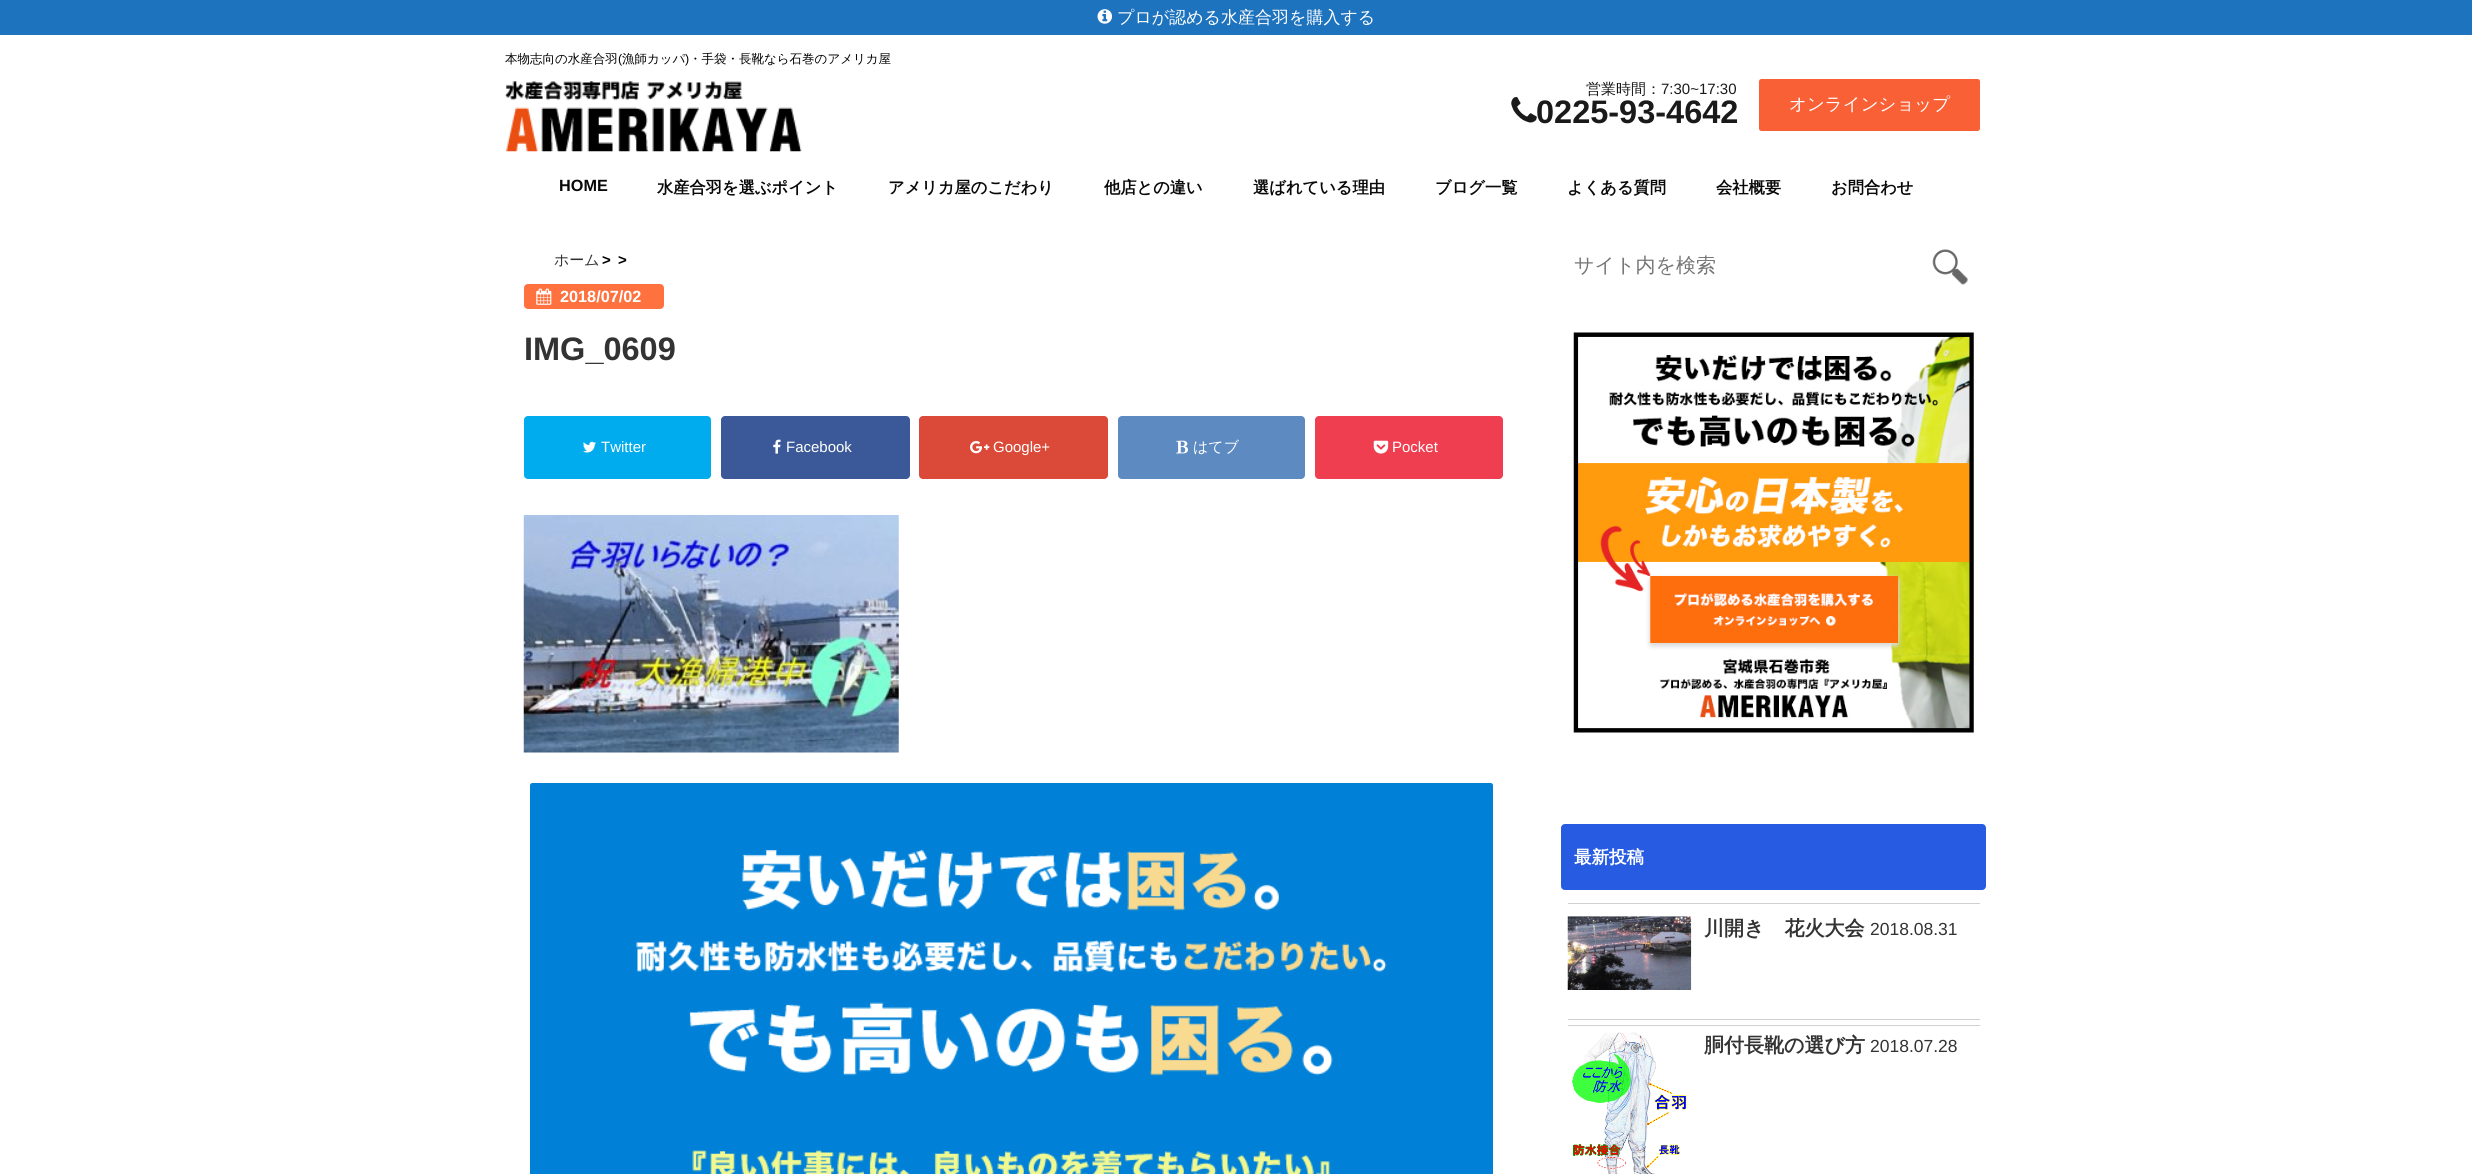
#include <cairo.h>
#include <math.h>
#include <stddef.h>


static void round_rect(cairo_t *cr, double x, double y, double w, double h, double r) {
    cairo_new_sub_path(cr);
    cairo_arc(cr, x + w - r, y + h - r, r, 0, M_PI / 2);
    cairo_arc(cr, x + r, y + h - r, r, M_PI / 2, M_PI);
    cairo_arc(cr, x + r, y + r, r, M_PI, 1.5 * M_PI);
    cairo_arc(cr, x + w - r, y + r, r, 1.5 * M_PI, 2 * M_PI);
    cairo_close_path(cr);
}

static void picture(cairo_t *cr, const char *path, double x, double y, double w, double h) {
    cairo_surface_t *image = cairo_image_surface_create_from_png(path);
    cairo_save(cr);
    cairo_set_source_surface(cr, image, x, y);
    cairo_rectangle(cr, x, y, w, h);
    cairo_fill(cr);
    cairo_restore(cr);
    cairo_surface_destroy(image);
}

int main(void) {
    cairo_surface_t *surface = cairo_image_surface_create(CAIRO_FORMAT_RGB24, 2472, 1174);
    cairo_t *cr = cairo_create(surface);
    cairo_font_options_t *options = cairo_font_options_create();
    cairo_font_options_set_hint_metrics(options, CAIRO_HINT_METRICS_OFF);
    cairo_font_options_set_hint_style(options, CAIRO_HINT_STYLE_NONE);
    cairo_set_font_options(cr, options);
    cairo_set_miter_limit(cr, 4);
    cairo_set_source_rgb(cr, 1, 1, 1);
    cairo_paint(cr);
    cairo_set_source_rgb(cr, 0.118, 0.451, 0.745);
    cairo_rectangle(cr, 0, 0, 2472, 35);
    cairo_fill(cr);
    picture(cr, "img1.png", 1097, 9, 16, 15);
    cairo_select_font_face(cr, "WenQuanYi Zen Hei Medium", CAIRO_FONT_SLANT_NORMAL, CAIRO_FONT_WEIGHT_NORMAL);
    cairo_set_font_size(cr, 17);
    cairo_set_source_rgb(cr, 1, 1, 1);
    cairo_move_to(cr, 1117, 23);
    cairo_show_text(cr, "プロが認める水産合羽を購入する");
    cairo_set_font_size(cr, 12.5);
    cairo_set_source_rgb(cr, 0, 0, 0);
    cairo_move_to(cr, 505, 63);
    cairo_show_text(cr, "本物志向の水産合羽");
    cairo_select_font_face(cr, "Liberation Sans", CAIRO_FONT_SLANT_NORMAL, CAIRO_FONT_WEIGHT_NORMAL);
    cairo_move_to(cr, 618, 63);
    cairo_show_text(cr, "(");
    cairo_select_font_face(cr, "WenQuanYi Zen Hei Medium", CAIRO_FONT_SLANT_NORMAL, CAIRO_FONT_WEIGHT_NORMAL);
    cairo_move_to(cr, 622, 63);
    cairo_show_text(cr, "漁師カッパ");
    cairo_select_font_face(cr, "Liberation Sans", CAIRO_FONT_SLANT_NORMAL, CAIRO_FONT_WEIGHT_NORMAL);
    cairo_move_to(cr, 685, 63);
    cairo_show_text(cr, ")");
    cairo_select_font_face(cr, "WenQuanYi Zen Hei Medium", CAIRO_FONT_SLANT_NORMAL, CAIRO_FONT_WEIGHT_NORMAL);
    cairo_move_to(cr, 689, 63);
    cairo_show_text(cr, "・手袋・長靴なら石巻のアメリカ屋");
    picture(cr, "img2.png", 505, 81, 297, 71);
    cairo_set_font_size(cr, 15);
    cairo_set_source_rgb(cr, 0.102, 0.102, 0.102);
    cairo_move_to(cr, 1586, 94);
    cairo_show_text(cr, "営業時間：");
    cairo_select_font_face(cr, "Liberation Sans", CAIRO_FONT_SLANT_NORMAL, CAIRO_FONT_WEIGHT_NORMAL);
    cairo_move_to(cr, 1661, 94);
    cairo_show_text(cr, "7:30~17:30");
    picture(cr, "img3.png", 1511, 97, 26, 26);
    cairo_select_font_face(cr, "Liberation Sans", CAIRO_FONT_SLANT_NORMAL, CAIRO_FONT_WEIGHT_BOLD);
    cairo_set_font_size(cr, 32.5);
    cairo_move_to(cr, 1536, 123);
    cairo_show_text(cr, "0225-93-4642");
    cairo_set_source_rgb(cr, 0.976, 0.376, 0.212);
    round_rect(cr, 1760.5, 80.5, 218, 49, 1);
    cairo_fill_preserve(cr);
    cairo_set_line_width(cr, 3);
    cairo_stroke(cr);
    cairo_select_font_face(cr, "WenQuanYi Zen Hei Medium", CAIRO_FONT_SLANT_NORMAL, CAIRO_FONT_WEIGHT_NORMAL);
    cairo_set_font_size(cr, 17.5);
    cairo_set_source_rgb(cr, 1, 1, 1);
    cairo_move_to(cr, 1789, 110);
    cairo_show_text(cr, "オンラインショップ");
    cairo_select_font_face(cr, "Liberation Sans", CAIRO_FONT_SLANT_NORMAL, CAIRO_FONT_WEIGHT_BOLD);
    cairo_set_font_size(cr, 16.25);
    cairo_set_source_rgb(cr, 0.039, 0.039, 0.039);
    cairo_move_to(cr, 559, 191);
    cairo_show_text(cr, "HOME");
    cairo_select_font_face(cr, "WenQuanYi Zen Hei", CAIRO_FONT_SLANT_NORMAL, CAIRO_FONT_WEIGHT_BOLD);
    cairo_move_to(cr, 657, 193);
    cairo_show_text(cr, "水産合羽を選ぶポイント");
    cairo_move_to(cr, 888, 193);
    cairo_show_text(cr, "アメリカ屋のこだわり");
    cairo_move_to(cr, 1104, 193);
    cairo_show_text(cr, "他店との違い");
    cairo_move_to(cr, 1253, 193);
    cairo_show_text(cr, "選ばれている理由");
    cairo_move_to(cr, 1435, 193);
    cairo_show_text(cr, "ブログ一覧");
    cairo_move_to(cr, 1567, 193);
    cairo_show_text(cr, "よくある質問");
    cairo_move_to(cr, 1716, 193);
    cairo_show_text(cr, "会社概要");
    cairo_move_to(cr, 1831, 193);
    cairo_show_text(cr, "お問合わせ");
    cairo_select_font_face(cr, "WenQuanYi Zen Hei Medium", CAIRO_FONT_SLANT_NORMAL, CAIRO_FONT_WEIGHT_NORMAL);
    cairo_set_font_size(cr, 15);
    cairo_set_source_rgb(cr, 0.2, 0.2, 0.2);
    cairo_move_to(cr, 554, 265);
    cairo_show_text(cr, "ホーム");
    cairo_select_font_face(cr, "Liberation Sans", CAIRO_FONT_SLANT_NORMAL, CAIRO_FONT_WEIGHT_BOLD);
    cairo_set_source_rgb(cr, 0, 0, 0);
    cairo_move_to(cr, 602, 265);
    cairo_show_text(cr, ">");
    cairo_move_to(cr, 618, 265);
    cairo_show_text(cr, ">");
    cairo_set_source_rgb(cr, 1, 0.447, 0.247);
    round_rect(cr, 524, 284, 140, 25, 4);
    cairo_fill(cr);
    picture(cr, "img4.png", 536, 288, 16, 17);
    cairo_set_font_size(cr, 16.25);
    cairo_set_source_rgb(cr, 1, 1, 1);
    cairo_move_to(cr, 560, 302);
    cairo_show_text(cr, "2018/07/02");
    cairo_set_font_size(cr, 32.5);
    cairo_set_source_rgb(cr, 0.2, 0.2, 0.2);
    cairo_move_to(cr, 524, 360);
    cairo_show_text(cr, "IMG_0609");
    cairo_set_source_rgb(cr, 0, 0.675, 0.933);
    round_rect(cr, 524, 416, 187, 63, 4);
    cairo_fill(cr);
    picture(cr, "img5.png", 583, 441, 13, 12);
    cairo_select_font_face(cr, "Liberation Sans", CAIRO_FONT_SLANT_NORMAL, CAIRO_FONT_WEIGHT_NORMAL);
    cairo_set_font_size(cr, 15);
    cairo_set_source_rgb(cr, 1, 1, 1);
    cairo_move_to(cr, 601, 452);
    cairo_show_text(cr, "Twitter");
    cairo_set_source_rgb(cr, 0.231, 0.349, 0.596);
    round_rect(cr, 721, 416, 189, 63, 4);
    cairo_fill(cr);
    picture(cr, "img6.png", 773, 439, 8, 15);
    cairo_set_source_rgb(cr, 1, 1, 1);
    cairo_move_to(cr, 786, 452);
    cairo_show_text(cr, "Facebook");
    cairo_set_source_rgb(cr, 0.859, 0.29, 0.224);
    round_rect(cr, 919, 416, 189, 63, 4);
    cairo_fill(cr);
    picture(cr, "img7.png", 970, 441, 20, 13);
    cairo_set_source_rgb(cr, 1, 1, 1);
    cairo_move_to(cr, 993, 452);
    cairo_show_text(cr, "Google+");
    cairo_set_source_rgb(cr, 0.365, 0.541, 0.757);
    round_rect(cr, 1118, 416, 187, 63, 4);
    cairo_fill(cr);
    picture(cr, "img8.png", 1176, 440, 12, 14);
    cairo_select_font_face(cr, "WenQuanYi Zen Hei Medium", CAIRO_FONT_SLANT_NORMAL, CAIRO_FONT_WEIGHT_NORMAL);
    cairo_set_source_rgb(cr, 1, 1, 1);
    cairo_move_to(cr, 1193, 452);
    cairo_show_text(cr, "はてブ");
    cairo_set_source_rgb(cr, 0.941, 0.243, 0.318);
    round_rect(cr, 1315, 416, 188, 63, 4);
    cairo_fill(cr);
    picture(cr, "img9.png", 1373, 440, 16, 14);
    cairo_select_font_face(cr, "Liberation Sans", CAIRO_FONT_SLANT_NORMAL, CAIRO_FONT_WEIGHT_NORMAL);
    cairo_set_source_rgb(cr, 1, 1, 1);
    cairo_move_to(cr, 1392, 452);
    cairo_show_text(cr, "Pocket");
    picture(cr, "img10.png", 523, 515, 376, 238);
    cairo_set_source_rgb(cr, 0, 0.506, 0.843);
    round_rect(cr, 530.5, 783.5, 962, 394, 2);
    cairo_fill_preserve(cr);
    cairo_set_line_width(cr, 1);
    cairo_stroke(cr);
    picture(cr, "img11.png", 636, 850, 751, 324);
    cairo_select_font_face(cr, "WenQuanYi Zen Hei Medium", CAIRO_FONT_SLANT_NORMAL, CAIRO_FONT_WEIGHT_NORMAL);
    cairo_set_font_size(cr, 20);
    cairo_set_source_rgb(cr, 0.459, 0.459, 0.459);
    cairo_move_to(cr, 1574, 272);
    cairo_show_text(cr, "サイト内を検索");
    picture(cr, "img12.png", 1932, 249, 36, 36);
    picture(cr, "img13.png", 1573, 332, 401, 401);
    cairo_set_source_rgb(cr, 0.149, 0.357, 0.886);
    round_rect(cr, 1561, 824, 425, 66, 4);
    cairo_fill(cr);
    cairo_select_font_face(cr, "WenQuanYi Zen Hei", CAIRO_FONT_SLANT_NORMAL, CAIRO_FONT_WEIGHT_BOLD);
    cairo_set_font_size(cr, 17.5);
    cairo_set_source_rgb(cr, 1, 1, 1);
    cairo_move_to(cr, 1574, 863);
    cairo_show_text(cr, "最新投稿");
    cairo_set_source_rgb(cr, 0.816, 0.816, 0.816);
    cairo_rectangle(cr, 1568, 903, 412, 1);
    cairo_fill(cr);
    cairo_rectangle(cr, 1568, 1025, 412, 1);
    cairo_fill(cr);
    picture(cr, "img14.png", 1567, 916, 125, 74);
    cairo_set_font_size(cr, 20);
    cairo_set_source_rgb(cr, 0.2, 0.2, 0.2);
    cairo_move_to(cr, 1704, 935);
    cairo_show_text(cr, "川開き　花火大会");
    cairo_select_font_face(cr, "Liberation Sans", CAIRO_FONT_SLANT_NORMAL, CAIRO_FONT_WEIGHT_NORMAL);
    cairo_set_font_size(cr, 17.5);
    cairo_move_to(cr, 1870, 935);
    cairo_show_text(cr, "2018.08.31");
    cairo_set_source_rgb(cr, 0.816, 0.816, 0.816);
    cairo_rectangle(cr, 1568, 1019, 412, 1);
    cairo_fill(cr);
    picture(cr, "img15.png", 1572, 1032, 115, 142);
    cairo_select_font_face(cr, "WenQuanYi Zen Hei", CAIRO_FONT_SLANT_NORMAL, CAIRO_FONT_WEIGHT_BOLD);
    cairo_set_font_size(cr, 20);
    cairo_set_source_rgb(cr, 0.2, 0.2, 0.2);
    cairo_move_to(cr, 1704, 1052);
    cairo_show_text(cr, "胴付長靴の選び方");
    cairo_select_font_face(cr, "Liberation Sans", CAIRO_FONT_SLANT_NORMAL, CAIRO_FONT_WEIGHT_NORMAL);
    cairo_set_font_size(cr, 17.5);
    cairo_move_to(cr, 1870, 1052);
    cairo_show_text(cr, "2018.07.28");
    cairo_surface_write_to_png(surface, "page.png");
    cairo_font_options_destroy(options);
    cairo_destroy(cr);
    cairo_surface_destroy(surface);
    return 0;
}
